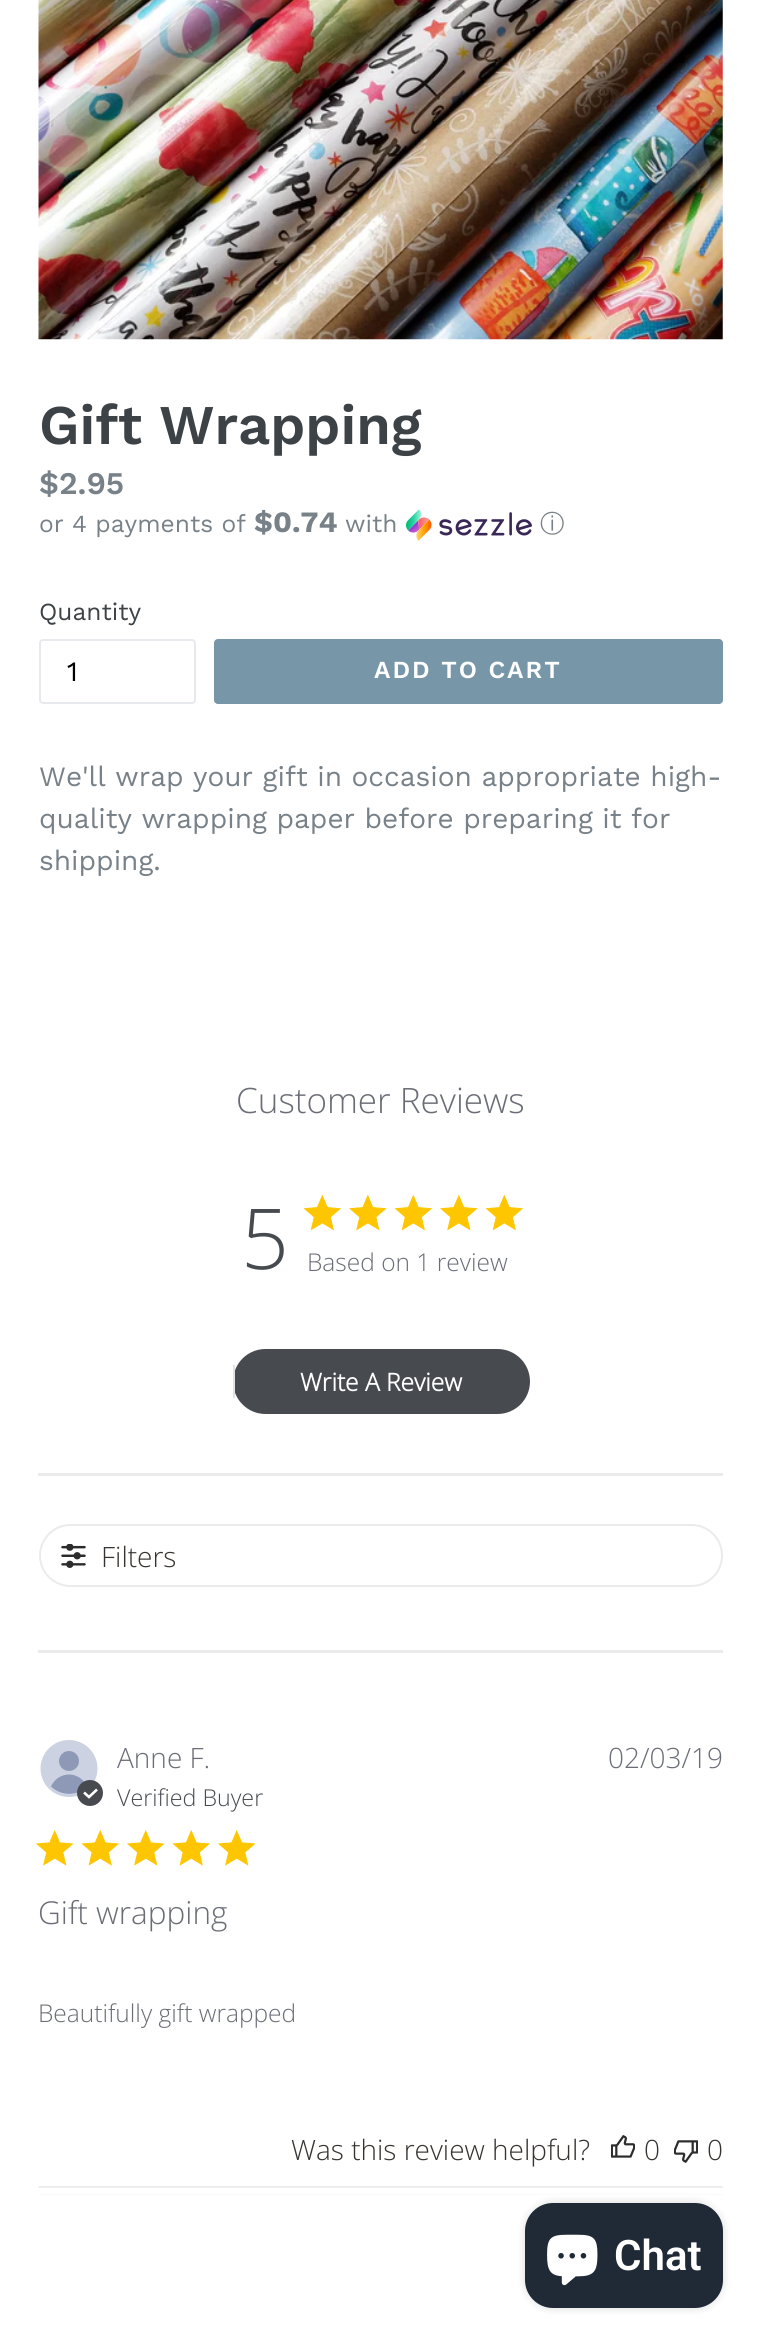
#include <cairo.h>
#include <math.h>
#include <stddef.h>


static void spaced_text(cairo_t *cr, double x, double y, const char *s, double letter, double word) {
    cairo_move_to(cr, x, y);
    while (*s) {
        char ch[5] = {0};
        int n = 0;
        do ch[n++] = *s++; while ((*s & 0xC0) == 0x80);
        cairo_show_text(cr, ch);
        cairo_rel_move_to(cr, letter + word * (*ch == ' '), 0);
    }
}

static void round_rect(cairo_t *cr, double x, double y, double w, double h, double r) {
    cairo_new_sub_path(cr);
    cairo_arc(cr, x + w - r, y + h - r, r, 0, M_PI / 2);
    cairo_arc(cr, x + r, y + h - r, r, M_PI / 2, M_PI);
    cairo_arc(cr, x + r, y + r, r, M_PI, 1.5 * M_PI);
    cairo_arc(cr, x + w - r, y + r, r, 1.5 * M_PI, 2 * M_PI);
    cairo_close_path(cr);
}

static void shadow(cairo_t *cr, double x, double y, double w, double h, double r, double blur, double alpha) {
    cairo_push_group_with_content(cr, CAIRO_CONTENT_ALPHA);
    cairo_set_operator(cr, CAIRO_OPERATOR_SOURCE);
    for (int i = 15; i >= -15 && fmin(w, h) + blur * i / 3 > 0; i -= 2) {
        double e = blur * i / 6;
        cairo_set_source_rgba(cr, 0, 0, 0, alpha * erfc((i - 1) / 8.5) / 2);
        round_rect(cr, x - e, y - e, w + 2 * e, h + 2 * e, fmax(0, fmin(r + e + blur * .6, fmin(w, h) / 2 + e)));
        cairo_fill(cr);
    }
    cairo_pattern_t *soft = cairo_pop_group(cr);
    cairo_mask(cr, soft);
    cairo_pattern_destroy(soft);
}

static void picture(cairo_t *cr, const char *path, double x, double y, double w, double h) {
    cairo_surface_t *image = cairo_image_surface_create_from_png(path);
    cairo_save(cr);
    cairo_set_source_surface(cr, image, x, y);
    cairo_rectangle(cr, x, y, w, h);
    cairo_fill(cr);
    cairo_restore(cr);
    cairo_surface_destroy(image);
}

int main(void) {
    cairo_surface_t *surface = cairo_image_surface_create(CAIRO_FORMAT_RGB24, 761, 2344);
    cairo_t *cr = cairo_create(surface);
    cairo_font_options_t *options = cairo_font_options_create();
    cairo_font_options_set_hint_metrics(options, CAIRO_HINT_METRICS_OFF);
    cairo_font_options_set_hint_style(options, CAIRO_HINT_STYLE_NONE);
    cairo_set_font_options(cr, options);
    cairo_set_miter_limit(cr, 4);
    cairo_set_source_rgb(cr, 1, 1, 1);
    cairo_paint(cr);
    picture(cr, "img1.png", 38, 0, 685, 340);
    cairo_select_font_face(cr, "Work Sans SemiBold", CAIRO_FONT_SLANT_NORMAL, CAIRO_FONT_WEIGHT_NORMAL);
    cairo_set_font_size(cr, 56);
    cairo_set_source_rgb(cr, 0.239, 0.259, 0.275);
    cairo_move_to(cr, 39, 444);
    cairo_show_text(cr, "Gift Wrapping");
    cairo_set_font_size(cr, 31.5);
    cairo_set_source_rgb(cr, 0.471, 0.506, 0.533);
    cairo_move_to(cr, 39, 494);
    cairo_show_text(cr, "$2.95");
    cairo_select_font_face(cr, "Work Sans", CAIRO_FONT_SLANT_NORMAL, CAIRO_FONT_WEIGHT_NORMAL);
    cairo_set_font_size(cr, 24.5);
    cairo_move_to(cr, 39, 532);
    cairo_show_text(cr, "or 4 payments of");
    cairo_select_font_face(cr, "Work Sans", CAIRO_FONT_SLANT_NORMAL, CAIRO_FONT_WEIGHT_BOLD);
    cairo_set_font_size(cr, 29.5);
    cairo_move_to(cr, 254, 532);
    cairo_show_text(cr, "$0.74");
    cairo_select_font_face(cr, "Work Sans", CAIRO_FONT_SLANT_NORMAL, CAIRO_FONT_WEIGHT_NORMAL);
    cairo_set_font_size(cr, 24.5);
    cairo_move_to(cr, 345, 532);
    cairo_show_text(cr, "with");
    picture(cr, "img2.png", 406, 509, 126, 32);
    cairo_select_font_face(cr, "WenQuanYi Zen Hei Medium", CAIRO_FONT_SLANT_NORMAL, CAIRO_FONT_WEIGHT_NORMAL);
    cairo_move_to(cr, 540, 532);
    cairo_show_text(cr, "ⓘ");
    cairo_select_font_face(cr, "Work Sans", CAIRO_FONT_SLANT_NORMAL, CAIRO_FONT_WEIGHT_NORMAL);
    cairo_set_source_rgb(cr, 0.239, 0.259, 0.275);
    cairo_move_to(cr, 39, 620);
    cairo_show_text(cr, "Quantity");
    round_rect(cr, 40, 640, 155, 63, 3);
    cairo_set_source_rgb(cr, 0.91, 0.914, 0.922);
    cairo_stroke(cr);
    cairo_set_font_size(cr, 28);
    cairo_set_source_rgb(cr, 0, 0, 0);
    cairo_move_to(cr, 67, 681);
    cairo_show_text(cr, "1");
    cairo_set_source_rgb(cr, 0.467, 0.588, 0.659);
    round_rect(cr, 214, 639, 509, 65, 4);
    cairo_fill(cr);
    cairo_select_font_face(cr, "Work Sans SemiBold", CAIRO_FONT_SLANT_NORMAL, CAIRO_FONT_WEIGHT_NORMAL);
    cairo_set_font_size(cr, 24.5);
    cairo_set_source_rgb(cr, 1, 1, 1);
    spaced_text(cr, 374, 678, "ADD TO CART", 2, 0);
    cairo_select_font_face(cr, "Work Sans", CAIRO_FONT_SLANT_NORMAL, CAIRO_FONT_WEIGHT_NORMAL);
    cairo_set_font_size(cr, 28);
    cairo_set_source_rgb(cr, 0.471, 0.506, 0.533);
    cairo_move_to(cr, 39, 786);
    cairo_show_text(cr, "We'll wrap your gift in occasion appropriate high-");
    cairo_move_to(cr, 39, 828);
    cairo_show_text(cr, "quality wrapping paper before preparing it for");
    cairo_move_to(cr, 39, 870);
    cairo_show_text(cr, "shipping.");
    cairo_select_font_face(cr, "Open Sans Light", CAIRO_FONT_SLANT_NORMAL, CAIRO_FONT_WEIGHT_NORMAL);
    cairo_set_font_size(cr, 35);
    cairo_set_source_rgb(cr, 0.42, 0.427, 0.463);
    cairo_move_to(cr, 236, 1113);
    cairo_show_text(cr, "Customer Reviews");
    cairo_set_font_size(cr, 84);
    cairo_set_source_rgb(cr, 0.278, 0.294, 0.314);
    cairo_move_to(cr, 241, 1269);
    cairo_show_text(cr, "5");
    picture(cr, "img3.png", 303, 1194, 38, 37);
    picture(cr, "img4.png", 349, 1194, 38, 37);
    picture(cr, "img3.png", 394, 1194, 38, 37);
    picture(cr, "img4.png", 440, 1194, 38, 37);
    picture(cr, "img3.png", 485, 1194, 38, 37);
    cairo_set_font_size(cr, 24.5);
    cairo_set_source_rgb(cr, 0.42, 0.427, 0.463);
    cairo_move_to(cr, 307, 1271);
    cairo_show_text(cr, "Based on 1 review");
    cairo_set_source_rgb(cr, 0.278, 0.294, 0.314);
    round_rect(cr, 233, 1349, 297, 65, 32.5);
    cairo_fill(cr);
    cairo_set_source_rgb(cr, 0.89, 0.89, 0.89);
    cairo_rectangle(cr, 233, 1365, 2, 33);
    cairo_fill(cr);
    cairo_select_font_face(cr, "Open Sans", CAIRO_FONT_SLANT_NORMAL, CAIRO_FONT_WEIGHT_BOLD);
    cairo_set_source_rgb(cr, 1, 1, 1);
    cairo_move_to(cr, 300, 1391);
    cairo_show_text(cr, "Write A Review");
    cairo_set_source_rgb(cr, 0.918, 0.918, 0.918);
    cairo_rectangle(cr, 38, 1473, 685, 3);
    cairo_fill(cr);
    round_rect(cr, 40, 1525, 682, 61, 30.5);
    cairo_stroke(cr);
    picture(cr, "img5.png", 61, 1544, 25, 24);
    cairo_select_font_face(cr, "Open Sans Light", CAIRO_FONT_SLANT_NORMAL, CAIRO_FONT_WEIGHT_NORMAL);
    cairo_set_font_size(cr, 28);
    cairo_set_source_rgb(cr, 0.216, 0.2, 0.188);
    cairo_move_to(cr, 101, 1567);
    cairo_show_text(cr, "Filters");
    cairo_set_source_rgb(cr, 0.918, 0.918, 0.918);
    cairo_rectangle(cr, 38, 1650, 685, 3);
    cairo_fill(cr);
    cairo_set_source_rgb(cr, 0.8, 0.824, 0.882);
    cairo_arc(cr, 69, 1768.5, 28.5, 0, 2 * M_PI);
    cairo_fill(cr);
    cairo_set_source_rgb(cr, 0.553, 0.6, 0.714);
    cairo_arc(cr, 69, 1761, 10, 0, 2 * M_PI);
    cairo_fill(cr);
    cairo_new_path(cr);
    cairo_move_to(cr, 69, 1774.5);
    cairo_curve_to(cr, 77, 1774.5, 84, 1779.5, 87, 1786.5);
    cairo_curve_to(cr, 77, 1796.5, 61, 1796, 51, 1786.5);
    cairo_curve_to(cr, 54, 1779.5, 61, 1774.5, 69, 1774.5);
    cairo_close_path(cr);
    cairo_fill(cr);
    cairo_set_source_rgb(cr, 0.278, 0.294, 0.314);
    cairo_arc(cr, 90, 1793, 13, 0, 2 * M_PI);
    cairo_fill(cr);
    cairo_new_path(cr);
    cairo_move_to(cr, 84, 1792.5);
    cairo_line_to(cr, 89, 1797);
    cairo_line_to(cr, 97, 1789.5);
    cairo_set_source_rgb(cr, 1, 1, 1);
    cairo_set_line_width(cr, 2.6);
    cairo_stroke(cr);
    cairo_set_source_rgb(cr, 0.42, 0.427, 0.463);
    cairo_move_to(cr, 117, 1768);
    cairo_show_text(cr, "Anne F.");
    cairo_set_font_size(cr, 23.25);
    cairo_set_source_rgb(cr, 0.278, 0.294, 0.314);
    cairo_move_to(cr, 117, 1806);
    cairo_show_text(cr, "Verified Buyer");
    cairo_set_font_size(cr, 28);
    cairo_set_source_rgb(cr, 0.42, 0.427, 0.463);
    cairo_move_to(cr, 608, 1768);
    cairo_show_text(cr, "02/03/19");
    picture(cr, "img6.png", 36, 1830, 38, 36);
    picture(cr, "img7.png", 81, 1830, 38, 36);
    picture(cr, "img6.png", 127, 1830, 38, 36);
    picture(cr, "img7.png", 172, 1830, 38, 36);
    picture(cr, "img6.png", 218, 1830, 38, 36);
    cairo_set_font_size(cr, 31.5);
    cairo_move_to(cr, 38, 1924);
    cairo_show_text(cr, "Gift wrapping");
    cairo_set_font_size(cr, 24.5);
    cairo_move_to(cr, 38, 2022);
    cairo_show_text(cr, "Beautifully gift wrapped");
    cairo_set_font_size(cr, 28);
    cairo_set_source_rgb(cr, 0.216, 0.2, 0.188);
    cairo_move_to(cr, 291, 2160);
    cairo_show_text(cr, "Was this review helpful?");
    picture(cr, "img8.png", 611, 2135, 24, 23);
    cairo_move_to(cr, 644, 2160);
    cairo_show_text(cr, "0");
    picture(cr, "img9.png", 674, 2140, 24, 23);
    cairo_move_to(cr, 707, 2160);
    cairo_show_text(cr, "0");
    picture(cr, "img10.png", 38, 2186, 685, 9);
    cairo_set_source_rgb(cr, 0, 0, 0);
    shadow(cr, 525, 2203, 198, 105, 28, 4.5, 0.15);
    cairo_set_source_rgb(cr, 0.125, 0.165, 0.212);
    round_rect(cr, 525, 2203, 198, 105, 28);
    cairo_fill(cr);
    picture(cr, "img11.png", 547, 2234, 51, 52);
    cairo_select_font_face(cr, "Roboto SemiBold", CAIRO_FONT_SLANT_NORMAL, CAIRO_FONT_WEIGHT_NORMAL);
    cairo_set_font_size(cr, 42);
    cairo_set_source_rgb(cr, 1, 1, 1);
    cairo_move_to(cr, 614, 2270);
    cairo_show_text(cr, "Chat");
    cairo_surface_write_to_png(surface, "page.png");
    cairo_font_options_destroy(options);
    cairo_destroy(cr);
    cairo_surface_destroy(surface);
    return 0;
}
